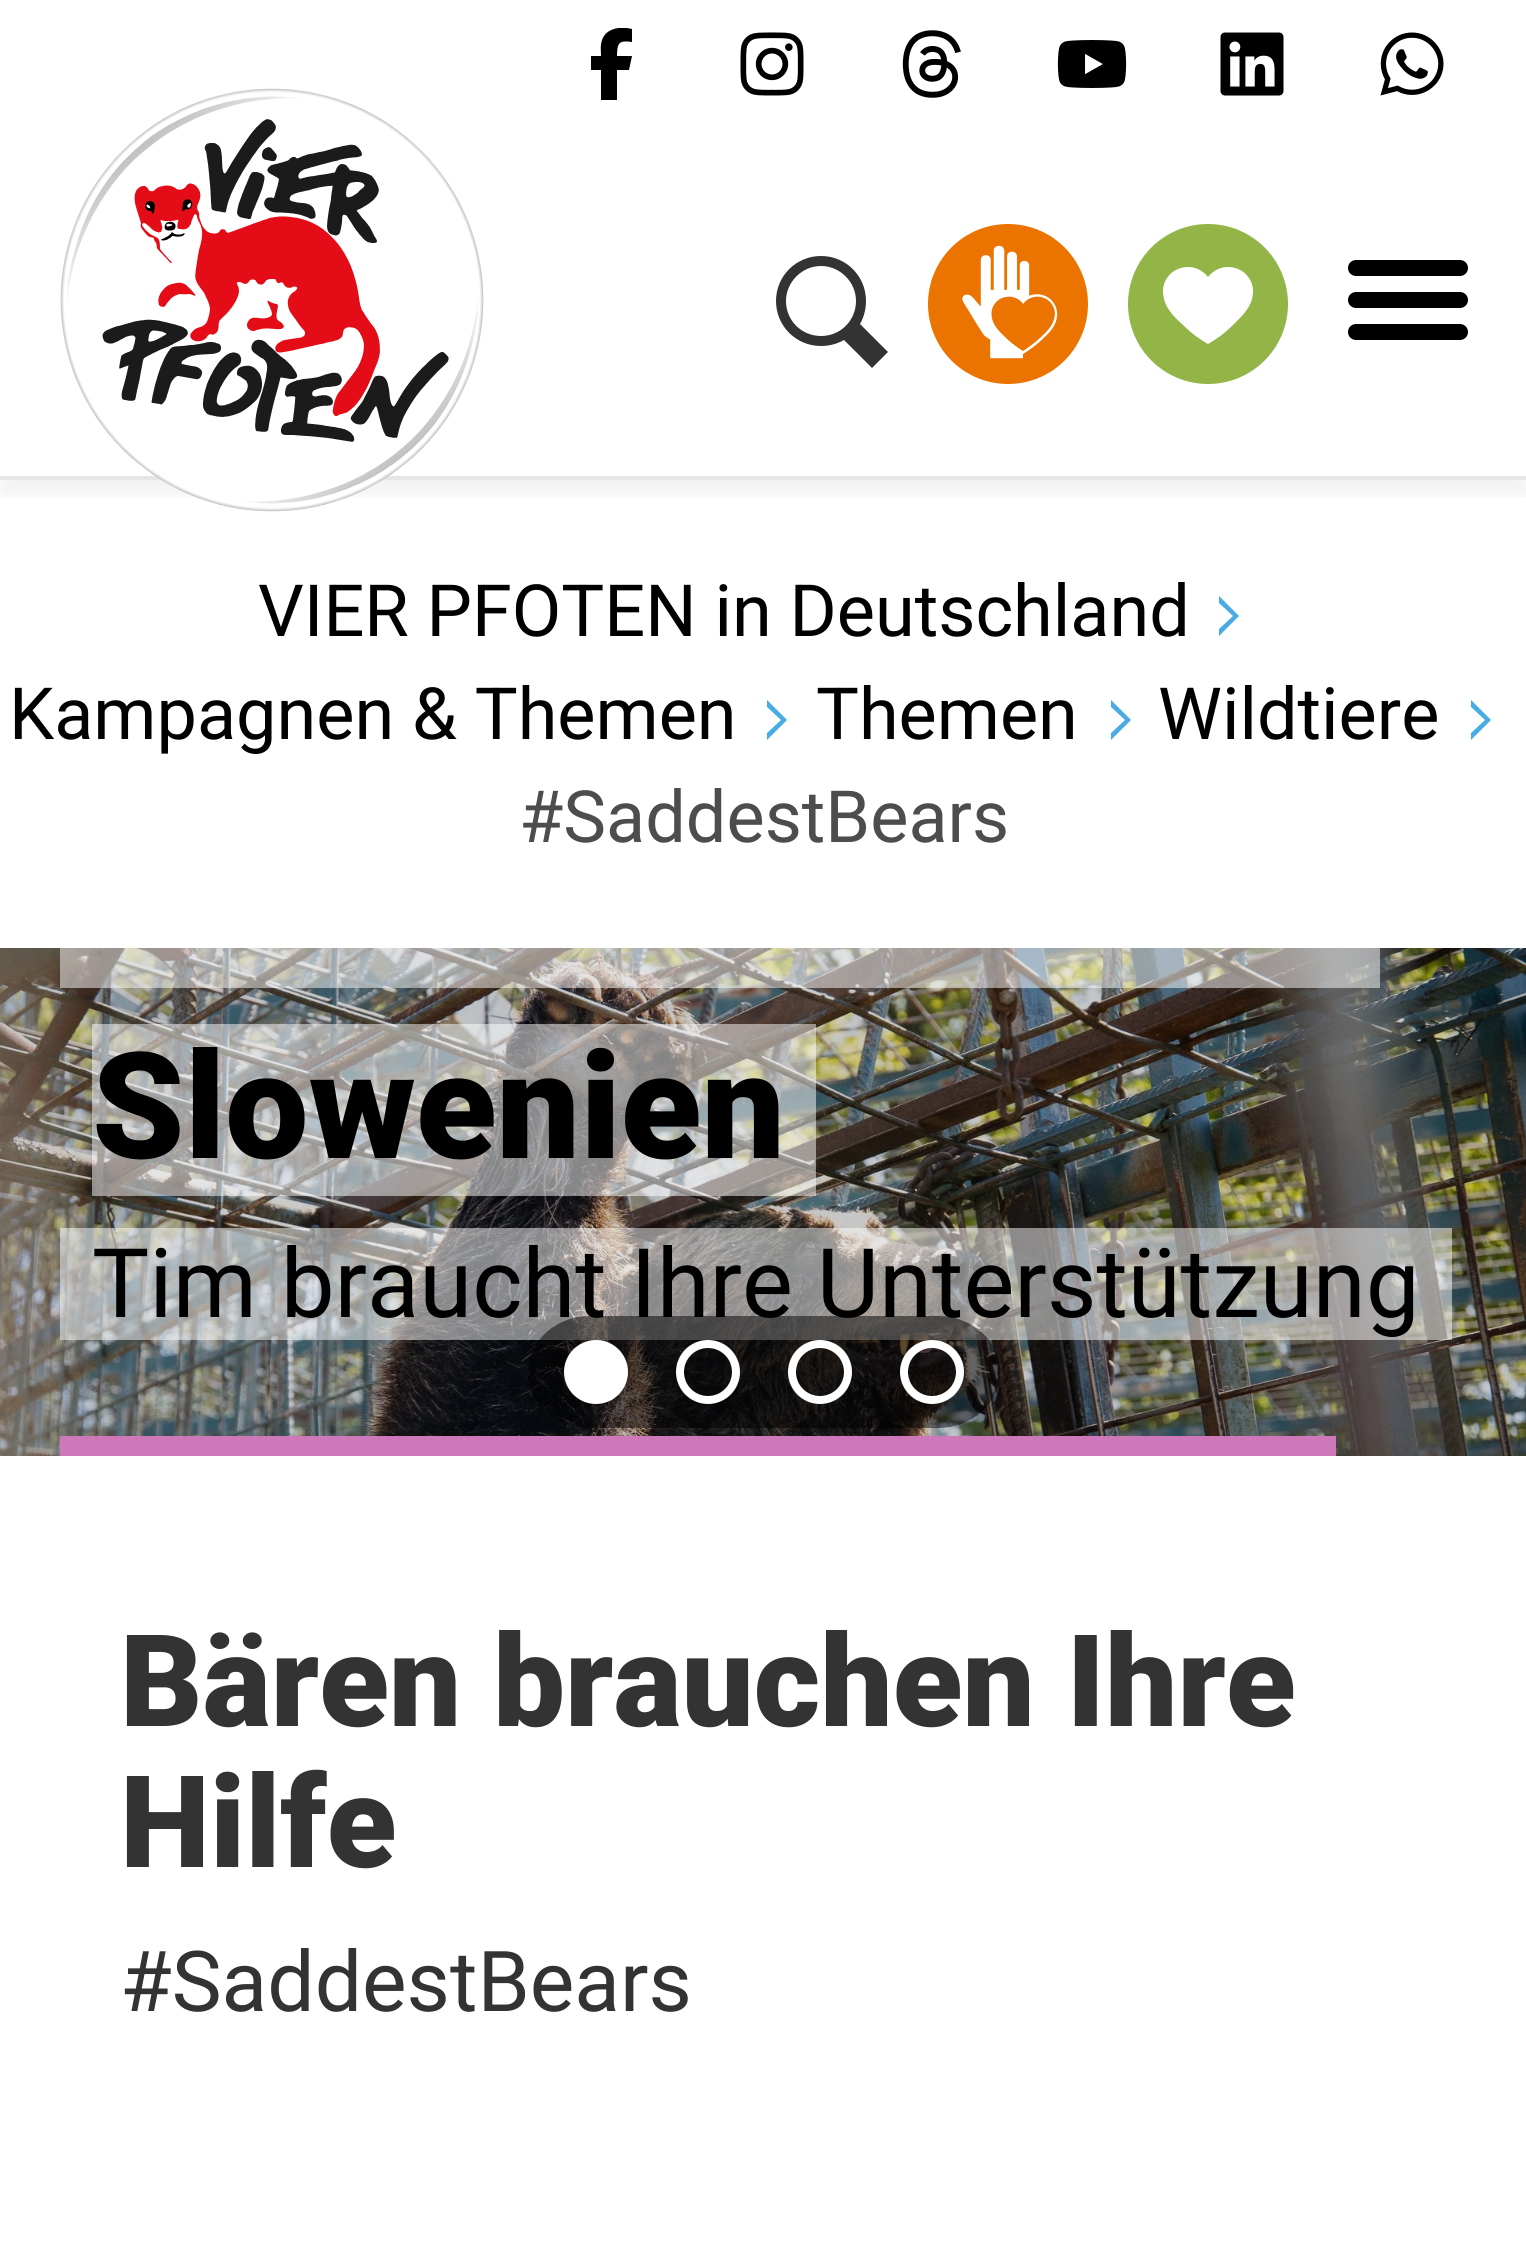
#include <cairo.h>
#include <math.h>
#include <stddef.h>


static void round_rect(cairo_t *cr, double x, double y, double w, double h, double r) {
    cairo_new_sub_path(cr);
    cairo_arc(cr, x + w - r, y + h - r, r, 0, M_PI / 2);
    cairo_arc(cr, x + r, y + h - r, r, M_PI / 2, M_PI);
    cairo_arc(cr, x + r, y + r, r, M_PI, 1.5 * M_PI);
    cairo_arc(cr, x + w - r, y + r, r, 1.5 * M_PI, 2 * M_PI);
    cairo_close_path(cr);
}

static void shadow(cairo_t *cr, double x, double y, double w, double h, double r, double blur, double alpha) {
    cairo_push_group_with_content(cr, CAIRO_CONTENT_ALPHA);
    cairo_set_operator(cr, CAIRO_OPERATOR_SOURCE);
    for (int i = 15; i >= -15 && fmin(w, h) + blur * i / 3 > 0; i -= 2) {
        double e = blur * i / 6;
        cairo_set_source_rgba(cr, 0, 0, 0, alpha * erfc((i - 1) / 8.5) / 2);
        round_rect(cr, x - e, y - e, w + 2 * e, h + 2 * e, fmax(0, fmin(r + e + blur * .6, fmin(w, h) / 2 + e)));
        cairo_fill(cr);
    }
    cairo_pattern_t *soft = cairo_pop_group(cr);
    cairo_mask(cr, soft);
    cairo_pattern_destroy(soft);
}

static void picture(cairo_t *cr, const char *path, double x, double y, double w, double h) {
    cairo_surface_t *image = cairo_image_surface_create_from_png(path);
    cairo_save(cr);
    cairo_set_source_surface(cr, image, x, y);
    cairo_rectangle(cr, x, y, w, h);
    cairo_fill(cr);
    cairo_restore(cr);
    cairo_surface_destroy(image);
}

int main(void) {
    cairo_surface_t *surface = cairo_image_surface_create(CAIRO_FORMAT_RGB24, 1526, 2241);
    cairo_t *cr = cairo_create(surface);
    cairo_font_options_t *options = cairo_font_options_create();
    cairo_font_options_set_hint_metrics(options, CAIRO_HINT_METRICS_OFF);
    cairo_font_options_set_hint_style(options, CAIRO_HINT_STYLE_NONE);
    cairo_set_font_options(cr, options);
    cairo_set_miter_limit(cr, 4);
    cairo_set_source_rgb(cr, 1, 1, 1);
    cairo_paint(cr);
    cairo_save(cr);
    cairo_rectangle(cr, 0, 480, 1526, 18);
    cairo_clip(cr);
    cairo_set_source_rgb(cr, 0, 0, 0);
    shadow(cr, 0, 16, 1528, 480, 0, 8, 0.05);
    cairo_restore(cr);
    cairo_set_source_rgb(cr, 0.902, 0.902, 0.902);
    cairo_rectangle(cr, 0, 476, 1526, 4);
    cairo_fill(cr);
    cairo_save(cr);
    cairo_rectangle(cr, 576, 28, 72, 72);
    cairo_clip(cr);
    cairo_set_source_rgb(cr, 0, 0, 0);
    cairo_new_path(cr);
    cairo_move_to(cr, 601, 70);
    cairo_line_to(cr, 601, 100);
    cairo_line_to(cr, 617, 100);
    cairo_line_to(cr, 617, 70);
    cairo_line_to(cr, 629, 70);
    cairo_line_to(cr, 632, 56);
    cairo_line_to(cr, 617, 56);
    cairo_curve_to(cr, 617, 43, 619, 40, 632, 42);
    cairo_line_to(cr, 632, 29);
    cairo_curve_to(cr, 621, 26, 606, 28, 602, 40);
    cairo_curve_to(cr, 600, 46, 601, 51, 601, 56);
    cairo_line_to(cr, 591, 56);
    cairo_line_to(cr, 591, 70);
    cairo_close_path(cr);
    cairo_fill(cr);
    cairo_restore(cr);
    picture(cr, "img1.png", 740, 32, 64, 64);
    picture(cr, "img2.png", 902, 30, 59, 68);
    picture(cr, "img3.png", 1057, 40, 70, 48);
    picture(cr, "img4.png", 1220, 32, 64, 64);
    picture(cr, "img5.png", 1380, 32, 64, 64);
    picture(cr, "img6.png", 60, 88, 424, 424);
    cairo_set_source_rgb(cr, 0.2, 0.2, 0.2);
    cairo_new_path(cr);
    cairo_move_to(cr, 856, 301);
    cairo_curve_to(cr, 856, 320, 841, 336, 821, 336);
    cairo_curve_to(cr, 802, 336, 786, 321, 786, 301);
    cairo_curve_to(cr, 786, 282, 802, 266, 821, 266);
    cairo_curve_to(cr, 840, 266, 856, 282, 856, 301);
    cairo_move_to(cr, 860, 324);
    cairo_curve_to(cr, 864, 317, 866, 309, 866, 301);
    cairo_curve_to(cr, 866, 276, 846, 256, 821, 256);
    cairo_curve_to(cr, 796, 256, 776, 276, 776, 301);
    cairo_curve_to(cr, 776, 326, 796, 346, 821, 346);
    cairo_curve_to(cr, 829, 346, 837, 344, 844, 340);
    cairo_line_to(cr, 872, 368);
    cairo_line_to(cr, 888, 352);
    cairo_close_path(cr);
    cairo_fill(cr);
    cairo_set_source_rgb(cr, 0.918, 0.451, 0);
    cairo_arc(cr, 1008, 304, 80, 0, 2 * M_PI);
    cairo_fill(cr);
    picture(cr, "img7.png", 962, 245, 96, 114);
    cairo_set_source_rgb(cr, 0.576, 0.71, 0.282);
    cairo_arc(cr, 1208, 304, 80, 0, 2 * M_PI);
    cairo_fill(cr);
    cairo_set_source_rgb(cr, 1, 1, 1);
    cairo_new_path(cr);
    cairo_move_to(cr, 1208, 344);
    cairo_curve_to(cr, 1201, 340, 1192, 334, 1183, 325);
    cairo_curve_to(cr, 1173, 316, 1163, 306, 1163, 291);
    cairo_curve_to(cr, 1163, 278, 1174, 267, 1188, 267);
    cairo_curve_to(cr, 1201, 267, 1208, 277, 1208, 277);
    cairo_curve_to(cr, 1208, 277, 1215, 267, 1228, 267);
    cairo_curve_to(cr, 1242, 267, 1253, 278, 1253, 291);
    cairo_curve_to(cr, 1253, 306, 1243, 315, 1233, 325);
    cairo_curve_to(cr, 1224, 334, 1215, 340, 1208, 344);
    cairo_close_path(cr);
    cairo_fill(cr);
    cairo_set_source_rgb(cr, 0, 0, 0);
    round_rect(cr, 1348, 260, 120, 16, 8);
    cairo_fill(cr);
    round_rect(cr, 1348, 292, 120, 16, 8);
    cairo_fill(cr);
    round_rect(cr, 1348, 324, 120, 16, 8);
    cairo_fill(cr);
    cairo_select_font_face(cr, "Roboto", CAIRO_FONT_SLANT_NORMAL, CAIRO_FONT_WEIGHT_NORMAL);
    cairo_set_font_size(cr, 72);
    cairo_move_to(cr, 258, 636);
    cairo_show_text(cr, "VIER PFOTEN in Deutschland");
    cairo_set_source_rgb(cr, 0.282, 0.671, 0.89);
    cairo_new_path(cr);
    cairo_move_to(cr, 1239, 616);
    cairo_line_to(cr, 1219, 636);
    cairo_line_to(cr, 1219, 629);
    cairo_line_to(cr, 1233, 616);
    cairo_line_to(cr, 1219, 603);
    cairo_line_to(cr, 1219, 596);
    cairo_close_path(cr);
    cairo_fill(cr);
    cairo_set_source_rgb(cr, 0, 0, 0);
    cairo_move_to(cr, 9, 739);
    cairo_show_text(cr, "Kampagnen & Themen");
    cairo_set_source_rgb(cr, 0.282, 0.671, 0.89);
    cairo_new_path(cr);
    cairo_move_to(cr, 787, 720);
    cairo_line_to(cr, 767, 740);
    cairo_line_to(cr, 767, 733);
    cairo_line_to(cr, 781, 720);
    cairo_line_to(cr, 767, 707);
    cairo_line_to(cr, 767, 700);
    cairo_close_path(cr);
    cairo_fill(cr);
    cairo_set_source_rgb(cr, 0, 0, 0);
    cairo_move_to(cr, 816, 739);
    cairo_show_text(cr, "Themen");
    cairo_set_source_rgb(cr, 0.282, 0.671, 0.89);
    cairo_new_path(cr);
    cairo_move_to(cr, 1131, 720);
    cairo_line_to(cr, 1111, 740);
    cairo_line_to(cr, 1111, 733);
    cairo_line_to(cr, 1125, 720);
    cairo_line_to(cr, 1111, 707);
    cairo_line_to(cr, 1111, 700);
    cairo_close_path(cr);
    cairo_fill(cr);
    cairo_set_source_rgb(cr, 0, 0, 0);
    cairo_move_to(cr, 1158, 739);
    cairo_show_text(cr, "Wildtiere");
    cairo_set_source_rgb(cr, 0.282, 0.671, 0.89);
    cairo_new_path(cr);
    cairo_move_to(cr, 1491, 720);
    cairo_line_to(cr, 1471, 740);
    cairo_line_to(cr, 1471, 733);
    cairo_line_to(cr, 1485, 720);
    cairo_line_to(cr, 1471, 707);
    cairo_line_to(cr, 1471, 700);
    cairo_close_path(cr);
    cairo_fill(cr);
    cairo_set_source_rgb(cr, 0.302, 0.302, 0.302);
    cairo_move_to(cr, 519, 842);
    cairo_show_text(cr, "#SaddestBears");
    picture(cr, "img8.png", 0, 948, 1526, 508);
    cairo_set_source_rgba(cr, 1, 1, 1, 0.5);
    cairo_rectangle(cr, 92, 1024, 724, 172);
    cairo_fill(cr);
    cairo_select_font_face(cr, "Roboto Black", CAIRO_FONT_SLANT_NORMAL, CAIRO_FONT_WEIGHT_NORMAL);
    cairo_set_font_size(cr, 148);
    cairo_set_source_rgb(cr, 0, 0, 0);
    cairo_move_to(cr, 92, 1158);
    cairo_show_text(cr, "Slowenien");
    cairo_set_source_rgba(cr, 1, 1, 1, 0.5);
    cairo_rectangle(cr, 60, 948, 1320, 40);
    cairo_fill(cr);
    cairo_rectangle(cr, 60, 1228, 1392, 112);
    cairo_fill(cr);
    cairo_select_font_face(cr, "Roboto", CAIRO_FONT_SLANT_NORMAL, CAIRO_FONT_WEIGHT_NORMAL);
    cairo_set_font_size(cr, 96);
    cairo_set_source_rgb(cr, 0, 0, 0);
    cairo_move_to(cr, 92, 1317);
    cairo_show_text(cr, "Tim braucht Ihre Unterstützung");
    cairo_set_source_rgb(cr, 0.808, 0.467, 0.725);
    cairo_rectangle(cr, 60, 1436, 1276, 20);
    cairo_fill(cr);
    cairo_set_source_rgba(cr, 0, 0, 0, 0.5);
    cairo_new_path(cr);
    cairo_move_to(cr, 590, 1316);
    cairo_line_to(cr, 652, 1316);
    cairo_line_to(cr, 652, 1428);
    cairo_line_to(cr, 590, 1428);
    cairo_curve_to(cr, 556, 1428, 528, 1403, 528, 1372);
    cairo_curve_to(cr, 528, 1341, 556, 1316, 590, 1316);
    cairo_close_path(cr);
    cairo_fill(cr);
    cairo_set_source_rgb(cr, 1, 1, 1);
    cairo_arc(cr, 596, 1372, 28, 0, 2 * M_PI);
    cairo_fill_preserve(cr);
    cairo_set_line_width(cr, 8);
    cairo_stroke(cr);
    cairo_set_source_rgba(cr, 0, 0, 0, 0.5);
    cairo_rectangle(cr, 652, 1316, 112, 112);
    cairo_fill(cr);
    cairo_arc(cr, 708, 1372, 28, 0, 2 * M_PI);
    cairo_set_source_rgb(cr, 1, 1, 1);
    cairo_stroke(cr);
    cairo_set_source_rgba(cr, 0, 0, 0, 0.5);
    cairo_rectangle(cr, 764, 1316, 112, 112);
    cairo_fill(cr);
    cairo_arc(cr, 820, 1372, 28, 0, 2 * M_PI);
    cairo_set_source_rgb(cr, 1, 1, 1);
    cairo_stroke(cr);
    cairo_set_source_rgba(cr, 0, 0, 0, 0.5);
    cairo_new_path(cr);
    cairo_move_to(cr, 876, 1316);
    cairo_line_to(cr, 938, 1316);
    cairo_curve_to(cr, 972, 1316, 1000, 1341, 1000, 1372);
    cairo_curve_to(cr, 1000, 1403, 972, 1428, 938, 1428);
    cairo_line_to(cr, 876, 1428);
    cairo_close_path(cr);
    cairo_fill(cr);
    cairo_arc(cr, 932, 1372, 28, 0, 2 * M_PI);
    cairo_set_source_rgb(cr, 1, 1, 1);
    cairo_stroke(cr);
    cairo_select_font_face(cr, "Roboto Black", CAIRO_FONT_SLANT_NORMAL, CAIRO_FONT_WEIGHT_NORMAL);
    cairo_set_font_size(cr, 128);
    cairo_set_source_rgb(cr, 0.2, 0.2, 0.2);
    cairo_move_to(cr, 120, 1726);
    cairo_show_text(cr, "Bären brauchen Ihre");
    cairo_move_to(cr, 120, 1867);
    cairo_show_text(cr, "Hilfe");
    cairo_select_font_face(cr, "Roboto", CAIRO_FONT_SLANT_NORMAL, CAIRO_FONT_WEIGHT_NORMAL);
    cairo_set_font_size(cr, 84);
    cairo_move_to(cr, 120, 2011);
    cairo_show_text(cr, "#SaddestBears");
    cairo_surface_write_to_png(surface, "page.png");
    cairo_font_options_destroy(options);
    cairo_destroy(cr);
    cairo_surface_destroy(surface);
    return 0;
}
